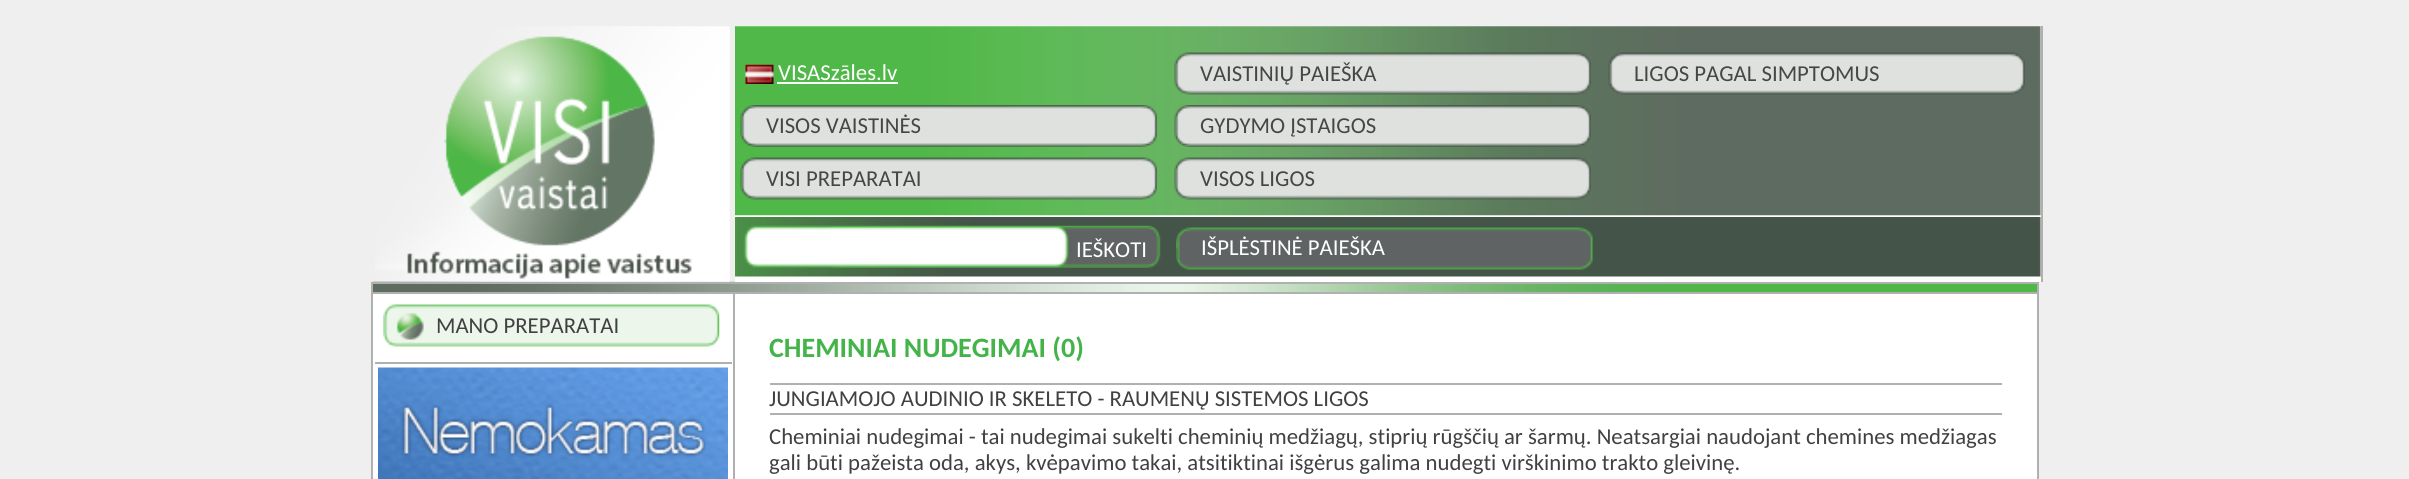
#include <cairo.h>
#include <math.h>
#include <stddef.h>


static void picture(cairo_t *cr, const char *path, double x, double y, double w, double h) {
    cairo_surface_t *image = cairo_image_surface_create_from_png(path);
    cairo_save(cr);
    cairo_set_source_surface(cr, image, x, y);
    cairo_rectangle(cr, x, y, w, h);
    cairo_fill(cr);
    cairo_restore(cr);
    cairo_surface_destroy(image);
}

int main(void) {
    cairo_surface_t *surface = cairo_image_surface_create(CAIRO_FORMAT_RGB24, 2409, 479);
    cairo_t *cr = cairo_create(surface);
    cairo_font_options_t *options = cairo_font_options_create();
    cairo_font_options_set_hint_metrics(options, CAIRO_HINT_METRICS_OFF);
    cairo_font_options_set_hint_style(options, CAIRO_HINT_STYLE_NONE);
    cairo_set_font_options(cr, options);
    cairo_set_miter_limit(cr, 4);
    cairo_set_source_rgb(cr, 0.937, 0.937, 0.937);
    cairo_paint(cr);
    cairo_set_source_rgb(cr, 0.686, 0.694, 0.69);
    cairo_rectangle(cr, 2041, 26, 2, 256);
    cairo_fill(cr);
    picture(cr, "img13.png", 372, 281, 1665, 11);
    picture(cr, "img1.png", 375, 26, 355, 256);
    cairo_set_source_rgb(cr, 1, 1, 1);
    cairo_rectangle(cr, 735, 26, 1306, 256);
    cairo_fill(cr);
    picture(cr, "img2.png", 735, 26, 1306, 190);
    picture(cr, "img3.png", 745, 64, 29, 20);
    cairo_select_font_face(cr, "Carlito", CAIRO_FONT_SLANT_NORMAL, CAIRO_FONT_WEIGHT_NORMAL);
    cairo_set_font_size(cr, 22.75);
    cairo_move_to(cr, 778, 80);
    cairo_show_text(cr, "VISASzāles.lv");
    cairo_rectangle(cr, 777, 82, 121, 2);
    cairo_fill(cr);
    picture(cr, "img4.png", 1174, 52, 417, 43);
    cairo_set_source_rgb(cr, 0.275, 0.275, 0.275);
    cairo_move_to(cr, 1200, 81);
    cairo_show_text(cr, "VAISTINIŲ PAIEŠKA");
    picture(cr, "img5.png", 1608, 52, 417, 43);
    cairo_move_to(cr, 1634, 81);
    cairo_show_text(cr, "LIGOS PAGAL SIMPTOMUS");
    picture(cr, "img6.png", 740, 105, 417, 42);
    cairo_move_to(cr, 766, 133);
    cairo_show_text(cr, "VISOS VAISTINĖS");
    picture(cr, "img7.png", 1174, 105, 417, 42);
    cairo_move_to(cr, 1200, 133);
    cairo_show_text(cr, "GYDYMO ĮSTAIGOS");
    picture(cr, "img8.png", 740, 157, 417, 43);
    cairo_move_to(cr, 766, 186);
    cairo_show_text(cr, "VISI PREPARATAI");
    picture(cr, "img9.png", 1174, 157, 417, 43);
    cairo_move_to(cr, 1200, 186);
    cairo_show_text(cr, "VISOS LIGOS");
    picture(cr, "img10.png", 735, 217, 1306, 60);
    picture(cr, "img11.png", 743, 225, 418, 43);
    cairo_set_source_rgb(cr, 1, 1, 1);
    cairo_move_to(cr, 1076, 257);
    cairo_show_text(cr, "IEŠKOTI");
    picture(cr, "img12.png", 1176, 227, 417, 43);
    cairo_move_to(cr, 1201, 255);
    cairo_show_text(cr, "IŠPLĖSTINĖ PAIEŠKA");
    cairo_set_source_rgb(cr, 0.686, 0.694, 0.69);
    cairo_rectangle(cr, 371, 282, 1668, 2);
    cairo_fill(cr);
    cairo_rectangle(cr, 2037, 282, 2, 10);
    cairo_fill(cr);
    cairo_rectangle(cr, 371, 282, 2, 10);
    cairo_fill(cr);
    cairo_set_source_rgb(cr, 1, 1, 1);
    cairo_rectangle(cr, 372, 293, 1666, 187);
    cairo_fill_preserve(cr);
    cairo_set_source_rgb(cr, 0.686, 0.694, 0.69);
    cairo_stroke(cr);
    cairo_rectangle(cr, 733, 294, 2, 185);
    cairo_fill(cr);
    picture(cr, "img14.png", 383, 304, 337, 43);
    cairo_set_source_rgb(cr, 0.255, 0.251, 0.259);
    cairo_move_to(cr, 436, 333);
    cairo_show_text(cr, "MANO PREPARATAI");
    cairo_set_source_rgb(cr, 0.686, 0.694, 0.69);
    cairo_rectangle(cr, 375, 362, 357, 2);
    cairo_fill(cr);
    picture(cr, "img15.png", 378, 367, 350, 112);
    cairo_select_font_face(cr, "Carlito", CAIRO_FONT_SLANT_NORMAL, CAIRO_FONT_WEIGHT_BOLD);
    cairo_set_font_size(cr, 28);
    cairo_set_source_rgb(cr, 0.267, 0.702, 0.29);
    cairo_move_to(cr, 769, 357);
    cairo_show_text(cr, "CHEMINIAI NUDEGIMAI (0)");
    cairo_set_source_rgb(cr, 0.686, 0.694, 0.69);
    cairo_rectangle(cr, 770, 383, 1232, 2);
    cairo_fill(cr);
    cairo_select_font_face(cr, "Carlito", CAIRO_FONT_SLANT_NORMAL, CAIRO_FONT_WEIGHT_NORMAL);
    cairo_set_font_size(cr, 22.75);
    cairo_set_source_rgb(cr, 0.255, 0.251, 0.259);
    cairo_move_to(cr, 769, 406);
    cairo_show_text(cr, "JUNGIAMOJO AUDINIO IR SKELETO - RAUMENŲ SISTEMOS LIGOS");
    cairo_set_source_rgb(cr, 0.686, 0.694, 0.69);
    cairo_rectangle(cr, 770, 413, 1232, 2);
    cairo_fill(cr);
    cairo_set_source_rgb(cr, 0.255, 0.251, 0.259);
    cairo_move_to(cr, 769, 444);
    cairo_show_text(cr, "Cheminiai nudegimai - tai nudegimai sukelti cheminių medžiagų, stiprių rūgščių ar šarmų. Neatsargiai naudojant chemines medžiagas");
    cairo_move_to(cr, 769, 470);
    cairo_show_text(cr, "gali būti pažeista oda, akys, kvėpavimo takai, atsitiktinai išgėrus galima nudegti virškinimo trakto gleivinę.");
    cairo_surface_write_to_png(surface, "page.png");
    cairo_font_options_destroy(options);
    cairo_destroy(cr);
    cairo_surface_destroy(surface);
    return 0;
}
